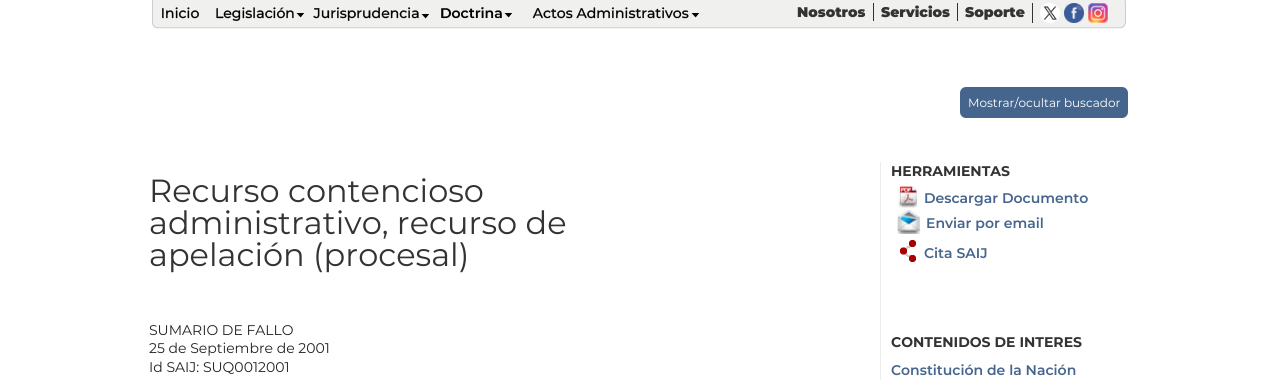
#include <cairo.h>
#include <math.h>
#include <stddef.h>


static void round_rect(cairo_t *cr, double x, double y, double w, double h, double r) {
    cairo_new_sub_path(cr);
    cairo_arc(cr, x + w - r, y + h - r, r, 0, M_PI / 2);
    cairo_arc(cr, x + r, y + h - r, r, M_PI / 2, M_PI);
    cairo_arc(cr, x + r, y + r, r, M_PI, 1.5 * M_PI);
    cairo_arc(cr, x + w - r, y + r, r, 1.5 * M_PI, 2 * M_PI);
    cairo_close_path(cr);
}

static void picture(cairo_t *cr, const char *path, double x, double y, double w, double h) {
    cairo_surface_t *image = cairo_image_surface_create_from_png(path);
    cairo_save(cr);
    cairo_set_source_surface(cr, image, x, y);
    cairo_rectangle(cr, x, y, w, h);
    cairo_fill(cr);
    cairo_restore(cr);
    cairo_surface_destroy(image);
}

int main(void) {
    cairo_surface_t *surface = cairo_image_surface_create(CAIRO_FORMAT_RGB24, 1276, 380);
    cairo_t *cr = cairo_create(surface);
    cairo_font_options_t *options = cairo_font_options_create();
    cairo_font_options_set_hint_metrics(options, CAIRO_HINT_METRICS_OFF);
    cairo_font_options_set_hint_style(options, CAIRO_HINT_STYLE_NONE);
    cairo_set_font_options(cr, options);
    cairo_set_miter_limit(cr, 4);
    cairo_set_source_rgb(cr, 1, 1, 1);
    cairo_paint(cr);
    picture(cr, "img1.png", 152, 0, 974, 29);
    picture(cr, "img2.png", 162, 7, 37, 12);
    picture(cr, "img3.png", 216, 7, 88, 14);
    picture(cr, "img4.png", 313, 7, 116, 14);
    picture(cr, "img5.png", 441, 7, 71, 12);
    picture(cr, "img6.png", 532, 7, 167, 12);
    cairo_select_font_face(cr, "Montserrat Black", CAIRO_FONT_SLANT_NORMAL, CAIRO_FONT_WEIGHT_NORMAL);
    cairo_set_font_size(cr, 14);
    cairo_set_source_rgb(cr, 0.2, 0.2, 0.2);
    cairo_move_to(cr, 797, 17);
    cairo_show_text(cr, "Nosotros");
    cairo_rectangle(cr, 873, 3, 1, 18);
    cairo_fill(cr);
    cairo_move_to(cr, 881, 17);
    cairo_show_text(cr, "Servicios");
    cairo_rectangle(cr, 957, 3, 1, 18);
    cairo_fill(cr);
    cairo_move_to(cr, 965, 17);
    cairo_show_text(cr, "Soporte");
    cairo_rectangle(cr, 1032, 3, 1, 20);
    cairo_fill(cr);
    picture(cr, "img7.png", 1040, 3, 20, 20);
    picture(cr, "img8.png", 1064, 3, 20, 20);
    picture(cr, "img9.png", 1088, 3, 20, 20);
    cairo_set_source_rgb(cr, 0.271, 0.396, 0.553);
    round_rect(cr, 960, 87, 168, 31, 6);
    cairo_fill(cr);
    cairo_select_font_face(cr, "Montserrat", CAIRO_FONT_SLANT_NORMAL, CAIRO_FONT_WEIGHT_NORMAL);
    cairo_set_font_size(cr, 12);
    cairo_set_source_rgb(cr, 1, 1, 1);
    cairo_move_to(cr, 968, 107);
    cairo_show_text(cr, "Mostrar/ocultar buscador");
    cairo_set_font_size(cr, 32);
    cairo_set_source_rgb(cr, 0.2, 0.2, 0.2);
    cairo_move_to(cr, 149, 202);
    cairo_show_text(cr, "Recurso contencioso");
    cairo_move_to(cr, 149, 234);
    cairo_show_text(cr, "administrativo, recurso de");
    cairo_move_to(cr, 149, 266);
    cairo_show_text(cr, "apelación (procesal)");
    cairo_set_font_size(cr, 14);
    cairo_set_source_rgb(cr, 0.133, 0.133, 0.133);
    cairo_move_to(cr, 149, 335);
    cairo_show_text(cr, "SUMARIO DE FALLO");
    cairo_move_to(cr, 149, 353);
    cairo_show_text(cr, "25 de Septiembre de 2001");
    cairo_move_to(cr, 149, 372);
    cairo_show_text(cr, "Id SAIJ: SUQ0012001");
    cairo_set_source_rgb(cr, 0.925, 0.925, 0.925);
    cairo_rectangle(cr, 880, 162, 1, 218);
    cairo_fill(cr);
    cairo_select_font_face(cr, "Montserrat", CAIRO_FONT_SLANT_NORMAL, CAIRO_FONT_WEIGHT_BOLD);
    cairo_set_source_rgb(cr, 0.2, 0.2, 0.2);
    cairo_move_to(cr, 891, 176);
    cairo_show_text(cr, "HERRAMIENTAS");
    picture(cr, "img10.png", 897, 185, 22, 23);
    cairo_select_font_face(cr, "Montserrat SemiBold", CAIRO_FONT_SLANT_NORMAL, CAIRO_FONT_WEIGHT_NORMAL);
    cairo_set_source_rgb(cr, 0.271, 0.396, 0.553);
    cairo_move_to(cr, 924, 203);
    cairo_show_text(cr, "Descargar Documento");
    picture(cr, "img11.png", 897, 210, 24, 24);
    cairo_move_to(cr, 926, 228);
    cairo_show_text(cr, "Enviar por email");
    picture(cr, "img12.png", 900, 240, 16, 22);
    cairo_move_to(cr, 924, 258);
    cairo_show_text(cr, "Cita SAIJ");
    cairo_select_font_face(cr, "Montserrat", CAIRO_FONT_SLANT_NORMAL, CAIRO_FONT_WEIGHT_BOLD);
    cairo_set_source_rgb(cr, 0.2, 0.2, 0.2);
    cairo_move_to(cr, 891, 347);
    cairo_show_text(cr, "CONTENIDOS DE INTERES");
    cairo_select_font_face(cr, "Montserrat SemiBold", CAIRO_FONT_SLANT_NORMAL, CAIRO_FONT_WEIGHT_NORMAL);
    cairo_set_source_rgb(cr, 0.271, 0.396, 0.553);
    cairo_move_to(cr, 891, 375);
    cairo_show_text(cr, "Constitución de la Nación");
    cairo_surface_write_to_png(surface, "page.png");
    cairo_font_options_destroy(options);
    cairo_destroy(cr);
    cairo_surface_destroy(surface);
    return 0;
}
